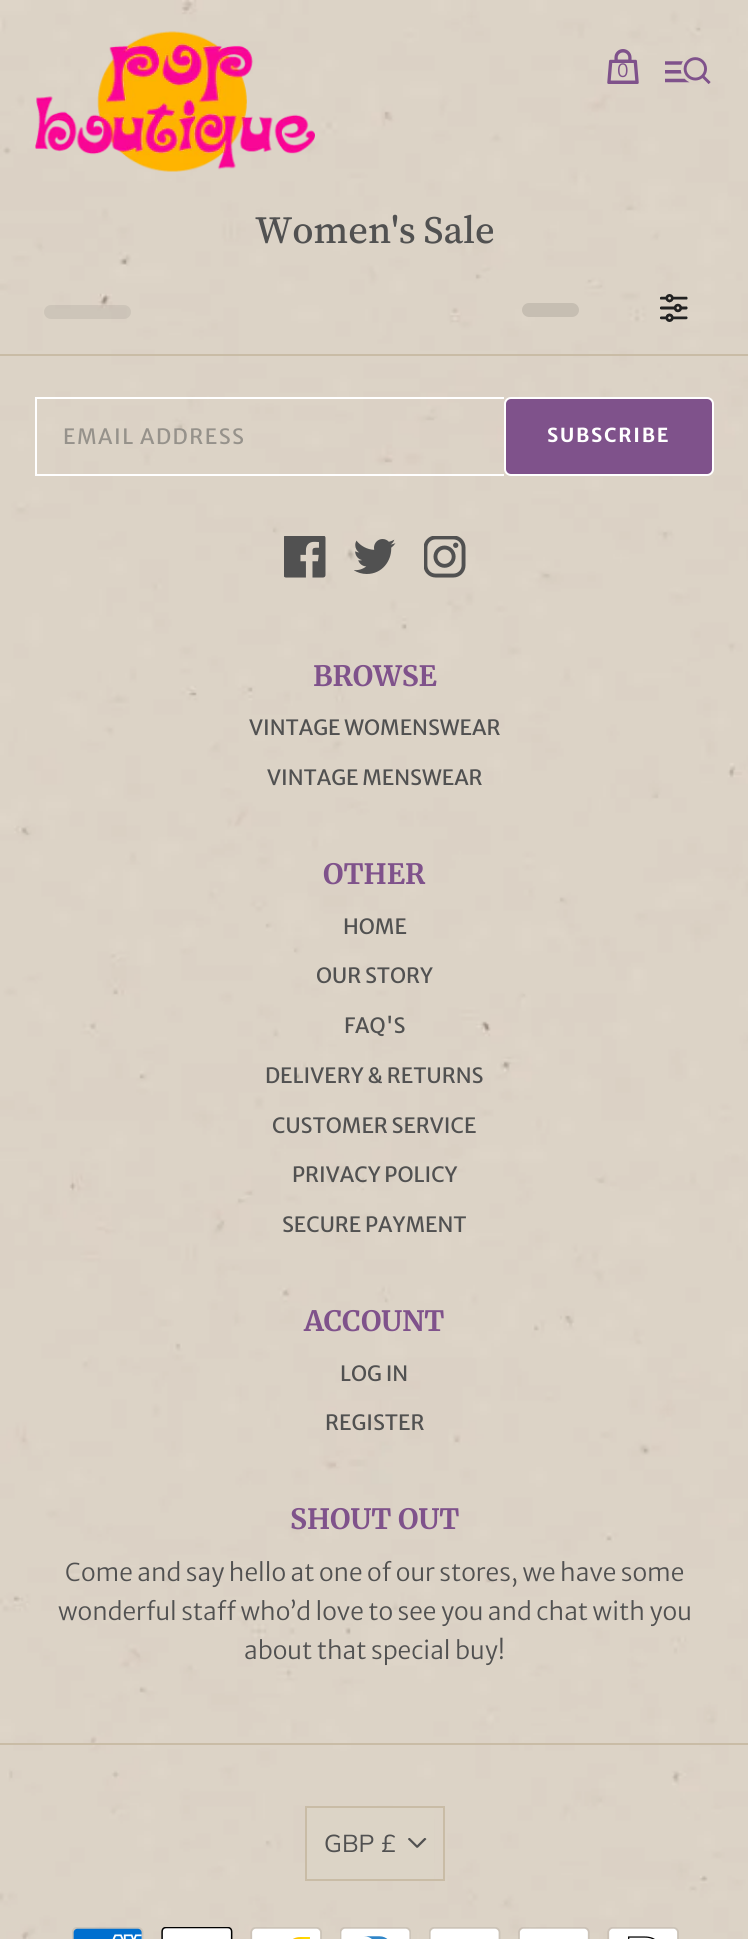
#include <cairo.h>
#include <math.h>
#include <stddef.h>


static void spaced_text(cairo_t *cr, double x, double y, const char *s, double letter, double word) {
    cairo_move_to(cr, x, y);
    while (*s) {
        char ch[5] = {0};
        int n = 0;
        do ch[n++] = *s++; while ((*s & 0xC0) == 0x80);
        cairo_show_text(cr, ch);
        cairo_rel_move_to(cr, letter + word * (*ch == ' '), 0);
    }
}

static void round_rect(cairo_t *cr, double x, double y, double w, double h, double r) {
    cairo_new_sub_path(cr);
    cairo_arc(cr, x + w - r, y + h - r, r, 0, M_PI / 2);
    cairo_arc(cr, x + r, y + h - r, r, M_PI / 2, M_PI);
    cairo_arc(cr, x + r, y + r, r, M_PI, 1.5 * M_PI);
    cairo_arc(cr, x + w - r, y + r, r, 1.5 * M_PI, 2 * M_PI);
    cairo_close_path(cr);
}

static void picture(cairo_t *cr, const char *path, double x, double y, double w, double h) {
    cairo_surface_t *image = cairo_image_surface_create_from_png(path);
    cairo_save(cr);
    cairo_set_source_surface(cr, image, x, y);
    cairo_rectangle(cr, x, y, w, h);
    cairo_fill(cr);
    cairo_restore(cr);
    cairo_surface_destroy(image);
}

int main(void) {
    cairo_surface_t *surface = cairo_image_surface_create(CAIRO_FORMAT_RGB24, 748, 1939);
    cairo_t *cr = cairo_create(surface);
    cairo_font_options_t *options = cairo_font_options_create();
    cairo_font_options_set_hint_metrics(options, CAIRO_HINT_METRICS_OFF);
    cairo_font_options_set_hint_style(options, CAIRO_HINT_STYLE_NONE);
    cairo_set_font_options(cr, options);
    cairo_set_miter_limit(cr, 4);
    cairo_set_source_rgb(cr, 1, 1, 1);
    cairo_paint(cr);
    picture(cr, "img1.png", 0, 0, 748, 1939);
    picture(cr, "img2.png", 35, 31, 280, 141);
    picture(cr, "img3.png", 607, 49, 32, 35);
    cairo_select_font_face(cr, "Muli", CAIRO_FONT_SLANT_NORMAL, CAIRO_FONT_WEIGHT_NORMAL);
    cairo_set_font_size(cr, 19.25);
    cairo_set_source_rgb(cr, 0.498, 0.322, 0.545);
    cairo_move_to(cr, 617, 77);
    cairo_show_text(cr, "0");
    picture(cr, "img4.png", 665, 57, 46, 27);
    cairo_select_font_face(cr, "Source Serif 4 Medium", CAIRO_FONT_SLANT_NORMAL, CAIRO_FONT_WEIGHT_NORMAL);
    cairo_set_font_size(cr, 38.5);
    cairo_set_source_rgb(cr, 0.318, 0.318, 0.318);
    spaced_text(cr, 255, 243, "Women's Sale", 0, -1);
    cairo_set_source_rgba(cr, 0, 0, 0, 0.07);
    round_rect(cr, 44, 305, 87, 14, 7);
    cairo_fill(cr);
    cairo_set_source_rgb(cr, 0.776, 0.745, 0.698);
    round_rect(cr, 522, 303, 57, 14, 7);
    cairo_fill(cr);
    picture(cr, "img5.png", 660, 294, 28, 28);
    cairo_set_source_rgb(cr, 0.788, 0.737, 0.651);
    cairo_rectangle(cr, 0, 354, 748, 2);
    cairo_fill(cr);
    cairo_set_source_rgb(cr, 1, 1, 1);
    cairo_rectangle(cr, 35, 397, 469, 2);
    cairo_fill(cr);
    cairo_rectangle(cr, 35, 474, 469, 2);
    cairo_fill(cr);
    cairo_rectangle(cr, 35, 397, 2, 79);
    cairo_fill(cr);
    cairo_select_font_face(cr, "Merriweather Sans", CAIRO_FONT_SLANT_NORMAL, CAIRO_FONT_WEIGHT_NORMAL);
    cairo_set_font_size(cr, 21);
    cairo_set_source_rgb(cr, 0.588, 0.573, 0.545);
    spaced_text(cr, 63, 444, "EMAIL ADDRESS", 1.5, 0);
    cairo_set_source_rgb(cr, 0.498, 0.322, 0.545);
    round_rect(cr, 505, 398, 208, 77, 6);
    cairo_fill_preserve(cr);
    cairo_set_source_rgb(cr, 1, 1, 1);
    cairo_stroke(cr);
    cairo_select_font_face(cr, "Merriweather Sans", CAIRO_FONT_SLANT_NORMAL, CAIRO_FONT_WEIGHT_BOLD);
    cairo_set_font_size(cr, 19.25);
    spaced_text(cr, 547, 442, "SUBSCRIBE", 1.75, 0);
    picture(cr, "img6.png", 284, 536, 42, 42);
    picture(cr, "img7.png", 354, 539, 42, 35);
    picture(cr, "img8.png", 424, 536, 42, 42);
    cairo_select_font_face(cr, "Merriweather", CAIRO_FONT_SLANT_NORMAL, CAIRO_FONT_WEIGHT_BOLD);
    cairo_set_font_size(cr, 28);
    cairo_set_source_rgb(cr, 0.498, 0.322, 0.545);
    cairo_move_to(cr, 313, 686);
    cairo_show_text(cr, "BROWSE");
    cairo_select_font_face(cr, "Merriweather Sans", CAIRO_FONT_SLANT_NORMAL, CAIRO_FONT_WEIGHT_NORMAL);
    cairo_set_font_size(cr, 21);
    cairo_set_source_rgb(cr, 0.318, 0.318, 0.318);
    cairo_move_to(cr, 249, 735);
    cairo_show_text(cr, "VINTAGE WOMENSWEAR");
    cairo_move_to(cr, 267, 785);
    cairo_show_text(cr, "VINTAGE MENSWEAR");
    cairo_select_font_face(cr, "Merriweather", CAIRO_FONT_SLANT_NORMAL, CAIRO_FONT_WEIGHT_BOLD);
    cairo_set_font_size(cr, 28);
    cairo_set_source_rgb(cr, 0.498, 0.322, 0.545);
    cairo_move_to(cr, 323, 884);
    cairo_show_text(cr, "OTHER");
    cairo_select_font_face(cr, "Merriweather Sans", CAIRO_FONT_SLANT_NORMAL, CAIRO_FONT_WEIGHT_NORMAL);
    cairo_set_font_size(cr, 21);
    cairo_set_source_rgb(cr, 0.318, 0.318, 0.318);
    cairo_move_to(cr, 343, 934);
    cairo_show_text(cr, "HOME");
    cairo_move_to(cr, 316, 983);
    cairo_show_text(cr, "OUR STORY");
    cairo_move_to(cr, 344, 1033);
    cairo_show_text(cr, "FAQ'S");
    cairo_move_to(cr, 265, 1083);
    cairo_show_text(cr, "DELIVERY & RETURNS");
    cairo_move_to(cr, 272, 1133);
    cairo_show_text(cr, "CUSTOMER SERVICE");
    cairo_move_to(cr, 292, 1182);
    cairo_show_text(cr, "PRIVACY POLICY");
    cairo_move_to(cr, 282, 1232);
    cairo_show_text(cr, "SECURE PAYMENT");
    cairo_select_font_face(cr, "Merriweather", CAIRO_FONT_SLANT_NORMAL, CAIRO_FONT_WEIGHT_BOLD);
    cairo_set_font_size(cr, 28);
    cairo_set_source_rgb(cr, 0.498, 0.322, 0.545);
    cairo_move_to(cr, 304, 1331);
    cairo_show_text(cr, "ACCOUNT");
    cairo_select_font_face(cr, "Merriweather Sans", CAIRO_FONT_SLANT_NORMAL, CAIRO_FONT_WEIGHT_NORMAL);
    cairo_set_font_size(cr, 21);
    cairo_set_source_rgb(cr, 0.318, 0.318, 0.318);
    cairo_move_to(cr, 340, 1381);
    cairo_show_text(cr, "LOG IN");
    cairo_move_to(cr, 325, 1430);
    cairo_show_text(cr, "REGISTER");
    cairo_select_font_face(cr, "Merriweather", CAIRO_FONT_SLANT_NORMAL, CAIRO_FONT_WEIGHT_BOLD);
    cairo_set_font_size(cr, 28);
    cairo_set_source_rgb(cr, 0.498, 0.322, 0.545);
    cairo_move_to(cr, 290, 1529);
    cairo_show_text(cr, "SHOUT OUT");
    cairo_select_font_face(cr, "Merriweather Sans Light", CAIRO_FONT_SLANT_NORMAL, CAIRO_FONT_WEIGHT_NORMAL);
    cairo_set_font_size(cr, 24.5);
    cairo_set_source_rgb(cr, 0.318, 0.318, 0.318);
    cairo_move_to(cr, 65, 1581);
    cairo_show_text(cr, "Come and say hello at one of our stores, we have some");
    cairo_move_to(cr, 58, 1620);
    cairo_show_text(cr, "wonderful staff who’d love to see you and chat with you");
    cairo_move_to(cr, 244, 1659);
    cairo_show_text(cr, "about that special buy!");
    cairo_set_source_rgb(cr, 0.788, 0.737, 0.651);
    cairo_rectangle(cr, 0, 1743, 748, 2);
    cairo_fill(cr);
    cairo_set_source_rgb(cr, 0.863, 0.831, 0.776);
    cairo_rectangle(cr, 307, 1808, 127, 71);
    cairo_fill(cr);
    cairo_rectangle(cr, 306, 1807, 138, 73);
    cairo_set_source_rgb(cr, 0.788, 0.737, 0.651);
    cairo_stroke(cr);
    cairo_select_font_face(cr, "Muli", CAIRO_FONT_SLANT_NORMAL, CAIRO_FONT_WEIGHT_NORMAL);
    cairo_set_source_rgb(cr, 0.318, 0.318, 0.318);
    cairo_move_to(cr, 324, 1852);
    cairo_show_text(cr, "GBP £");
    picture(cr, "img9.png", 408, 1838, 19, 10);
    picture(cr, "img10.png", 72, 1927, 72, 12);
    picture(cr, "img11.png", 161, 1927, 72, 12);
    picture(cr, "img12.png", 250, 1927, 72, 12);
    picture(cr, "img13.png", 340, 1927, 71, 12);
    picture(cr, "img14.png", 429, 1927, 72, 12);
    picture(cr, "img15.png", 518, 1927, 72, 12);
    picture(cr, "img16.png", 607, 1927, 72, 12);
    cairo_surface_write_to_png(surface, "page.png");
    cairo_font_options_destroy(options);
    cairo_destroy(cr);
    cairo_surface_destroy(surface);
    return 0;
}
